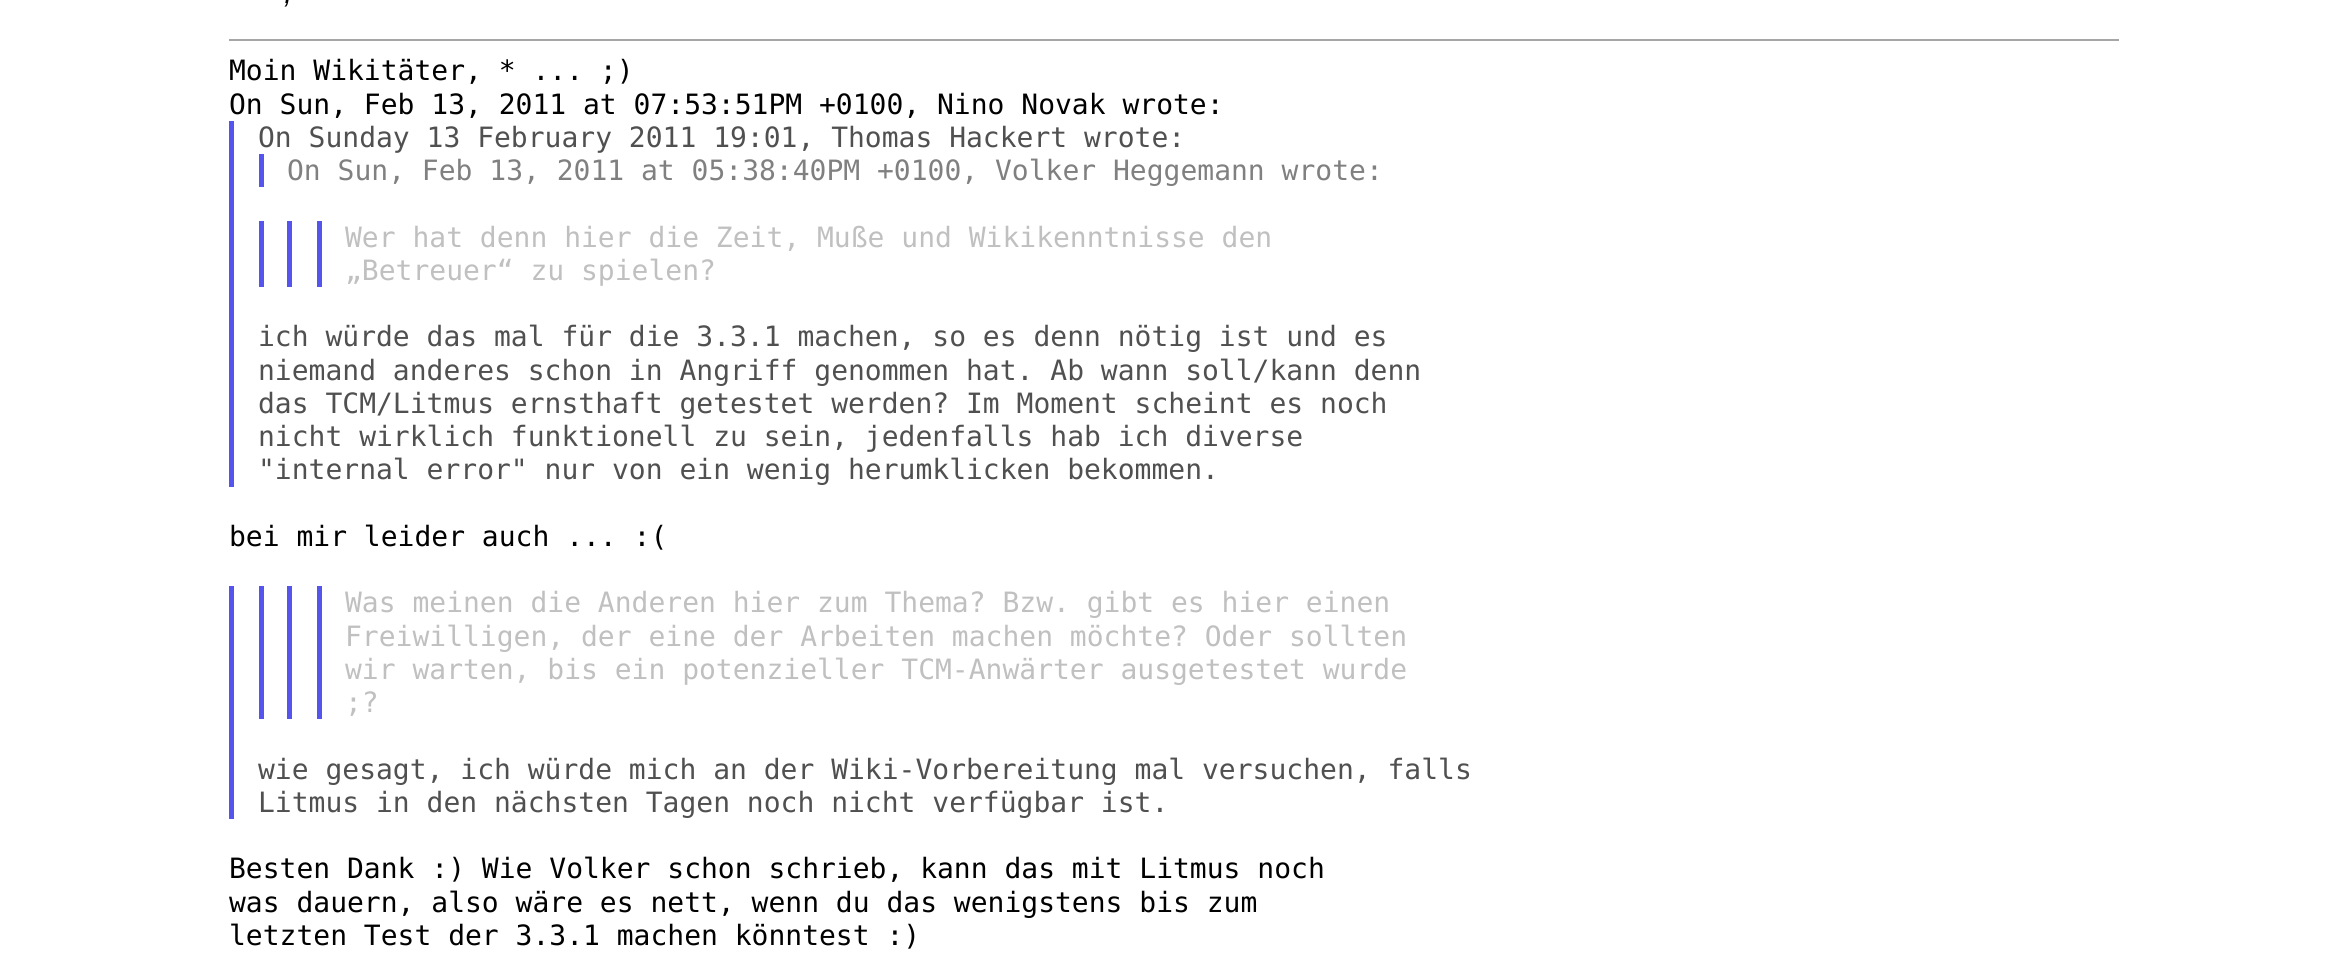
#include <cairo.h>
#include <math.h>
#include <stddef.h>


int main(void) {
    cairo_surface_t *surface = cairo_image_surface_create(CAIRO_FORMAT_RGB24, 2348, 960);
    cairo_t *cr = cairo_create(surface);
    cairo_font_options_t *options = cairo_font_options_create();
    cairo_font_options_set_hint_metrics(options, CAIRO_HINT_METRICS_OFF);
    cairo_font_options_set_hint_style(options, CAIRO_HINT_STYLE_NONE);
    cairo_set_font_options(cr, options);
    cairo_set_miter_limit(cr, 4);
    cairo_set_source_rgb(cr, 1, 1, 1);
    cairo_paint(cr);
    cairo_select_font_face(cr, "Liberation Sans", CAIRO_FONT_SLANT_ITALIC, CAIRO_FONT_WEIGHT_NORMAL);
    cairo_set_font_size(cr, 28);
    cairo_set_source_rgb(cr, 0, 0, 0);
    cairo_move_to(cr, 284, 3);
    cairo_show_text(cr, ",");
    cairo_set_source_rgb(cr, 0.651, 0.651, 0.651);
    cairo_rectangle(cr, 229, 39, 1890, 2);
    cairo_fill(cr);
    cairo_select_font_face(cr, "DejaVu Sans Mono", CAIRO_FONT_SLANT_NORMAL, CAIRO_FONT_WEIGHT_NORMAL);
    cairo_set_source_rgb(cr, 0, 0, 0);
    cairo_move_to(cr, 229, 80);
    cairo_show_text(cr, "Moin Wikitäter, * ... ;)");
    cairo_move_to(cr, 229, 114);
    cairo_show_text(cr, "On Sun, Feb 13, 2011 at 07:53:51PM +0100, Nino Novak wrote:");
    cairo_set_source_rgb(cr, 0.333, 0.333, 0.933);
    cairo_rectangle(cr, 229, 121, 5, 366);
    cairo_fill(cr);
    cairo_set_source_rgb(cr, 0.314, 0.314, 0.314);
    cairo_move_to(cr, 258, 147);
    cairo_show_text(cr, "On Sunday 13 February 2011 19:01, Thomas Hackert wrote:");
    cairo_set_source_rgb(cr, 0.333, 0.333, 0.933);
    cairo_rectangle(cr, 259, 154, 5, 33);
    cairo_fill(cr);
    cairo_set_source_rgb(cr, 0.502, 0.502, 0.502);
    cairo_move_to(cr, 287, 180);
    cairo_show_text(cr, "On Sun, Feb 13, 2011 at 05:38:40PM +0100, Volker Heggemann wrote:");
    cairo_set_source_rgb(cr, 0.333, 0.333, 0.933);
    cairo_rectangle(cr, 259, 221, 5, 66);
    cairo_fill(cr);
    cairo_rectangle(cr, 287, 221, 5, 66);
    cairo_fill(cr);
    cairo_rectangle(cr, 317, 221, 5, 66);
    cairo_fill(cr);
    cairo_set_source_rgb(cr, 0.753, 0.753, 0.753);
    cairo_move_to(cr, 345, 247);
    cairo_show_text(cr, "Wer hat denn hier die Zeit, Muße und Wikikenntnisse den");
    cairo_move_to(cr, 345, 280);
    cairo_show_text(cr, "„Betreuer“ zu spielen?");
    cairo_set_source_rgb(cr, 0.314, 0.314, 0.314);
    cairo_move_to(cr, 258, 346);
    cairo_show_text(cr, "ich würde das mal für die 3.3.1 machen, so es denn nötig ist und es");
    cairo_move_to(cr, 258, 380);
    cairo_show_text(cr, "niemand anderes schon in Angriff genommen hat. Ab wann soll/kann denn");
    cairo_move_to(cr, 258, 413);
    cairo_show_text(cr, "das TCM/Litmus ernsthaft getestet werden? Im Moment scheint es noch");
    cairo_move_to(cr, 258, 446);
    cairo_show_text(cr, "nicht wirklich funktionell zu sein, jedenfalls hab ich diverse");
    cairo_move_to(cr, 258, 479);
    cairo_show_text(cr, "\"internal error\" nur von ein wenig herumklicken bekommen.");
    cairo_set_source_rgb(cr, 0, 0, 0);
    cairo_move_to(cr, 229, 546);
    cairo_show_text(cr, "bei mir leider auch ... :(");
    cairo_set_source_rgb(cr, 0.333, 0.333, 0.933);
    cairo_rectangle(cr, 229, 586, 5, 233);
    cairo_fill(cr);
    cairo_rectangle(cr, 259, 586, 5, 133);
    cairo_fill(cr);
    cairo_rectangle(cr, 287, 586, 5, 133);
    cairo_fill(cr);
    cairo_rectangle(cr, 317, 586, 5, 133);
    cairo_fill(cr);
    cairo_set_source_rgb(cr, 0.753, 0.753, 0.753);
    cairo_move_to(cr, 345, 612);
    cairo_show_text(cr, "Was meinen die Anderen hier zum Thema? Bzw. gibt es hier einen");
    cairo_move_to(cr, 345, 646);
    cairo_show_text(cr, "Freiwilligen, der eine der Arbeiten machen möchte? Oder sollten");
    cairo_move_to(cr, 345, 679);
    cairo_show_text(cr, "wir warten, bis ein potenzieller TCM-Anwärter ausgetestet wurde");
    cairo_move_to(cr, 345, 712);
    cairo_show_text(cr, ";?");
    cairo_set_source_rgb(cr, 0.314, 0.314, 0.314);
    cairo_move_to(cr, 258, 779);
    cairo_show_text(cr, "wie gesagt, ich würde mich an der Wiki-Vorbereitung mal versuchen, falls");
    cairo_move_to(cr, 258, 812);
    cairo_show_text(cr, "Litmus in den nächsten Tagen noch nicht verfügbar ist.");
    cairo_set_source_rgb(cr, 0, 0, 0);
    cairo_move_to(cr, 229, 878);
    cairo_show_text(cr, "Besten Dank :) Wie Volker schon schrieb, kann das mit Litmus noch");
    cairo_move_to(cr, 229, 912);
    cairo_show_text(cr, "was dauern, also wäre es nett, wenn du das wenigstens bis zum");
    cairo_move_to(cr, 229, 945);
    cairo_show_text(cr, "letzten Test der 3.3.1 machen könntest :)");
    cairo_surface_write_to_png(surface, "page.png");
    cairo_font_options_destroy(options);
    cairo_destroy(cr);
    cairo_surface_destroy(surface);
    return 0;
}
